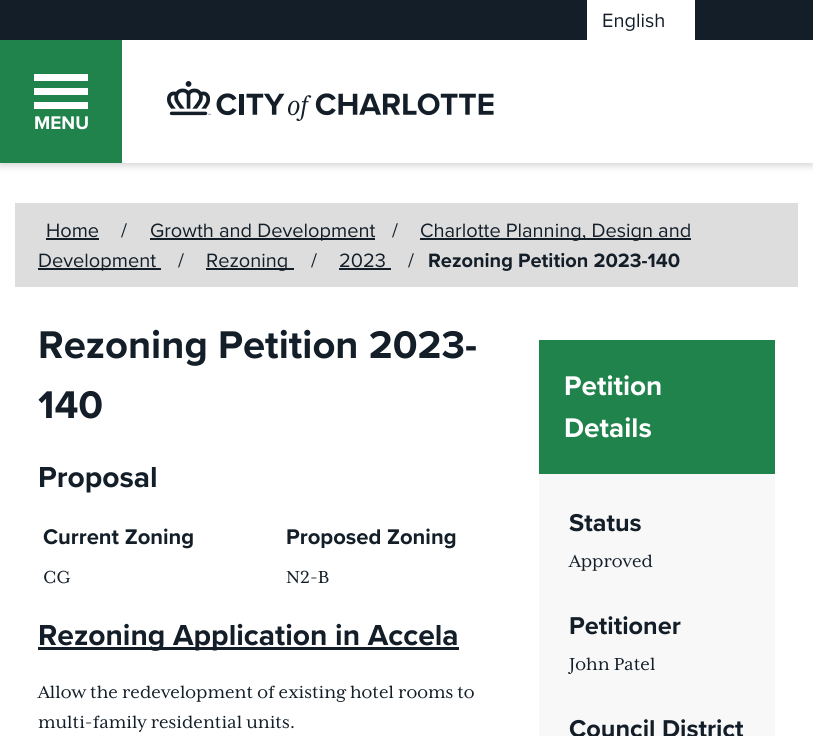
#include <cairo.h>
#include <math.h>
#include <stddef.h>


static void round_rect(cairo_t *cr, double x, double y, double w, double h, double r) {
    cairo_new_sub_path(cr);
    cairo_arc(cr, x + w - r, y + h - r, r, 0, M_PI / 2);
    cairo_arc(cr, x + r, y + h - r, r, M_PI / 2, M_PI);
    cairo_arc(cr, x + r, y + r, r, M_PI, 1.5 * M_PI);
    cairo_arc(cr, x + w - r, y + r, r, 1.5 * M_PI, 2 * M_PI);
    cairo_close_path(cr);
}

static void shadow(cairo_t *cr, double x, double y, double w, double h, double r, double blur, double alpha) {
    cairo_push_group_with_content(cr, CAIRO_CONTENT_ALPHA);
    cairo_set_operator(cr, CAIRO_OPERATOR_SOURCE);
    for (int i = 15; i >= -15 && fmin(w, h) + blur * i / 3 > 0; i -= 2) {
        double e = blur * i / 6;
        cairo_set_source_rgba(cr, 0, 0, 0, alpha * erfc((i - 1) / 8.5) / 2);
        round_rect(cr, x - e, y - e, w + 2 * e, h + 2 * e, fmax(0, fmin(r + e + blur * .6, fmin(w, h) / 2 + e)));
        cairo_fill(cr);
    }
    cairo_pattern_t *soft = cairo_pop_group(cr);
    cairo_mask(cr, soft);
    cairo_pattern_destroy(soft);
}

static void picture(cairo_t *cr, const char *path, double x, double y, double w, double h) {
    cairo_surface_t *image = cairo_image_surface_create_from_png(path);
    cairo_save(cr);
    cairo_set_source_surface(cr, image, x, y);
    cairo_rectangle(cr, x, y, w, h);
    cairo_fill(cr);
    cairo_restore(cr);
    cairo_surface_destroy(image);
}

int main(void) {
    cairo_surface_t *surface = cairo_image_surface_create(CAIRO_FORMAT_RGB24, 813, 736);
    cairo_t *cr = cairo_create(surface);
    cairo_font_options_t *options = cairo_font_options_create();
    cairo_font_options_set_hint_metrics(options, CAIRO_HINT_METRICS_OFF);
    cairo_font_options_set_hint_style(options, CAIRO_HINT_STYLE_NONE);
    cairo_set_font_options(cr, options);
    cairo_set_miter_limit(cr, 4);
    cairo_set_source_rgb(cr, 1, 1, 1);
    cairo_paint(cr);
    cairo_set_source_rgb(cr, 0.078, 0.118, 0.157);
    cairo_rectangle(cr, 0, 0, 813, 40);
    cairo_fill(cr);
    cairo_save(cr);
    cairo_set_fill_rule(cr, CAIRO_FILL_RULE_EVEN_ODD);
    cairo_new_path(cr);
    cairo_move_to(cr, 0, 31);
    cairo_line_to(cr, 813, 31);
    cairo_line_to(cr, 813, 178);
    cairo_line_to(cr, 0, 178);
    cairo_close_path(cr);
    cairo_move_to(cr, 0, 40);
    cairo_line_to(cr, 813, 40);
    cairo_line_to(cr, 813, 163);
    cairo_line_to(cr, 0, 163);
    cairo_close_path(cr);
    cairo_clip(cr);
    cairo_set_source_rgb(cr, 0.2, 0.2, 0.2);
    shadow(cr, 0, 43, 813, 123, 0, 3.5, 0.2);
    cairo_restore(cr);
    cairo_set_source_rgb(cr, 1, 1, 1);
    cairo_rectangle(cr, 587, 0, 108, 40);
    cairo_fill(cr);
    cairo_select_font_face(cr, "Proxima Nova", CAIRO_FONT_SLANT_NORMAL, CAIRO_FONT_WEIGHT_NORMAL);
    cairo_set_font_size(cr, 20);
    cairo_set_source_rgb(cr, 0.078, 0.118, 0.157);
    cairo_move_to(cr, 602, 27);
    cairo_show_text(cr, "English");
    picture(cr, "img1.png", 167, 81, 327, 40);
    cairo_set_source_rgb(cr, 0.129, 0.514, 0.298);
    cairo_rectangle(cr, 0, 40, 122, 123);
    cairo_fill(cr);
    cairo_set_source_rgb(cr, 1, 1, 1);
    cairo_rectangle(cr, 34, 88, 54, 7);
    cairo_fill(cr);
    cairo_rectangle(cr, 34, 74, 54, 7);
    cairo_fill(cr);
    cairo_rectangle(cr, 34, 102, 54, 7);
    cairo_fill(cr);
    cairo_select_font_face(cr, "Proxima Nova", CAIRO_FONT_SLANT_NORMAL, CAIRO_FONT_WEIGHT_BOLD);
    cairo_set_font_size(cr, 19);
    cairo_move_to(cr, 34, 129);
    cairo_show_text(cr, "MENU");
    cairo_set_source_rgb(cr, 0.867, 0.867, 0.867);
    cairo_rectangle(cr, 15, 203, 783, 84);
    cairo_fill(cr);
    cairo_select_font_face(cr, "Proxima Nova", CAIRO_FONT_SLANT_NORMAL, CAIRO_FONT_WEIGHT_NORMAL);
    cairo_set_font_size(cr, 20);
    cairo_set_source_rgb(cr, 0.078, 0.118, 0.157);
    cairo_move_to(cr, 46, 237);
    cairo_show_text(cr, "Home");
    cairo_rectangle(cr, 46, 238, 53, 2);
    cairo_fill(cr);
    cairo_move_to(cr, 121, 237);
    cairo_show_text(cr, "/");
    cairo_rectangle(cr, 150, 238, 225, 2);
    cairo_fill(cr);
    cairo_move_to(cr, 150, 237);
    cairo_show_text(cr, "Growth and Development");
    cairo_move_to(cr, 392, 237);
    cairo_show_text(cr, "/");
    cairo_rectangle(cr, 420, 238, 271, 2);
    cairo_fill(cr);
    cairo_move_to(cr, 420, 237);
    cairo_show_text(cr, "Charlotte Planning, Design and");
    cairo_rectangle(cr, 38, 268, 123, 2);
    cairo_fill(cr);
    cairo_move_to(cr, 38, 267);
    cairo_show_text(cr, "Development");
    cairo_move_to(cr, 178, 267);
    cairo_show_text(cr, "/");
    cairo_rectangle(cr, 206, 268, 88, 2);
    cairo_fill(cr);
    cairo_move_to(cr, 206, 267);
    cairo_show_text(cr, "Rezoning");
    cairo_move_to(cr, 311, 267);
    cairo_show_text(cr, "/");
    cairo_move_to(cr, 339, 267);
    cairo_show_text(cr, "2023");
    cairo_rectangle(cr, 339, 268, 52, 2);
    cairo_fill(cr);
    cairo_move_to(cr, 408, 267);
    cairo_show_text(cr, "/");
    cairo_select_font_face(cr, "Proxima Nova", CAIRO_FONT_SLANT_NORMAL, CAIRO_FONT_WEIGHT_BOLD);
    cairo_move_to(cr, 428, 267);
    cairo_show_text(cr, "Rezoning Petition 2023-140");
    cairo_set_font_size(cr, 40);
    cairo_move_to(cr, 38, 358);
    cairo_show_text(cr, "Rezoning Petition 2023-");
    cairo_move_to(cr, 38, 418);
    cairo_show_text(cr, "140");
    cairo_set_font_size(cr, 30);
    cairo_move_to(cr, 38, 487);
    cairo_show_text(cr, "Proposal");
    cairo_set_font_size(cr, 22);
    cairo_move_to(cr, 43, 544);
    cairo_show_text(cr, "Current Zoning");
    cairo_select_font_face(cr, "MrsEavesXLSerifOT", CAIRO_FONT_SLANT_NORMAL, CAIRO_FONT_WEIGHT_NORMAL);
    cairo_set_font_size(cr, 20);
    cairo_move_to(cr, 43, 583);
    cairo_show_text(cr, "CG");
    cairo_select_font_face(cr, "Proxima Nova", CAIRO_FONT_SLANT_NORMAL, CAIRO_FONT_WEIGHT_BOLD);
    cairo_set_font_size(cr, 22);
    cairo_move_to(cr, 286, 544);
    cairo_show_text(cr, "Proposed Zoning");
    cairo_select_font_face(cr, "MrsEavesXLSerifOT", CAIRO_FONT_SLANT_NORMAL, CAIRO_FONT_WEIGHT_NORMAL);
    cairo_set_font_size(cr, 20);
    cairo_move_to(cr, 286, 583);
    cairo_show_text(cr, "N2-B");
    cairo_rectangle(cr, 38, 647, 421, 3);
    cairo_fill(cr);
    cairo_select_font_face(cr, "Proxima Nova", CAIRO_FONT_SLANT_NORMAL, CAIRO_FONT_WEIGHT_BOLD);
    cairo_set_font_size(cr, 30);
    cairo_move_to(cr, 38, 645);
    cairo_show_text(cr, "Rezoning Application in Accela");
    cairo_select_font_face(cr, "MrsEavesXLSerifOT", CAIRO_FONT_SLANT_NORMAL, CAIRO_FONT_WEIGHT_NORMAL);
    cairo_set_font_size(cr, 20);
    cairo_move_to(cr, 38, 698);
    cairo_show_text(cr, "Allow the redevelopment of existing hotel rooms to");
    cairo_move_to(cr, 38, 728);
    cairo_show_text(cr, "multi-family residential units.");
    cairo_set_source_rgb(cr, 0.969, 0.969, 0.973);
    cairo_rectangle(cr, 539, 474, 236, 262);
    cairo_fill(cr);
    cairo_set_source_rgb(cr, 0.129, 0.514, 0.298);
    cairo_rectangle(cr, 539, 340, 236, 134);
    cairo_fill(cr);
    cairo_select_font_face(cr, "Proxima Nova", CAIRO_FONT_SLANT_NORMAL, CAIRO_FONT_WEIGHT_BOLD);
    cairo_set_font_size(cr, 28);
    cairo_set_source_rgb(cr, 1, 1, 1);
    cairo_move_to(cr, 564, 395);
    cairo_show_text(cr, "Petition");
    cairo_move_to(cr, 564, 437);
    cairo_show_text(cr, "Details");
    cairo_set_font_size(cr, 25.25);
    cairo_set_source_rgb(cr, 0.078, 0.118, 0.157);
    cairo_move_to(cr, 569, 531);
    cairo_show_text(cr, "Status");
    cairo_select_font_face(cr, "MrsEavesXLSerifOT", CAIRO_FONT_SLANT_NORMAL, CAIRO_FONT_WEIGHT_NORMAL);
    cairo_set_font_size(cr, 20);
    cairo_move_to(cr, 569, 567);
    cairo_show_text(cr, "Approved");
    cairo_select_font_face(cr, "Proxima Nova", CAIRO_FONT_SLANT_NORMAL, CAIRO_FONT_WEIGHT_BOLD);
    cairo_set_font_size(cr, 25.25);
    cairo_move_to(cr, 569, 634);
    cairo_show_text(cr, "Petitioner");
    cairo_select_font_face(cr, "MrsEavesXLSerifOT", CAIRO_FONT_SLANT_NORMAL, CAIRO_FONT_WEIGHT_NORMAL);
    cairo_set_font_size(cr, 20);
    cairo_move_to(cr, 569, 670);
    cairo_show_text(cr, "John Patel");
    cairo_select_font_face(cr, "Proxima Nova", CAIRO_FONT_SLANT_NORMAL, CAIRO_FONT_WEIGHT_BOLD);
    cairo_set_font_size(cr, 25.25);
    cairo_move_to(cr, 569, 737);
    cairo_show_text(cr, "Council District");
    cairo_surface_write_to_png(surface, "page.png");
    cairo_font_options_destroy(options);
    cairo_destroy(cr);
    cairo_surface_destroy(surface);
    return 0;
}
